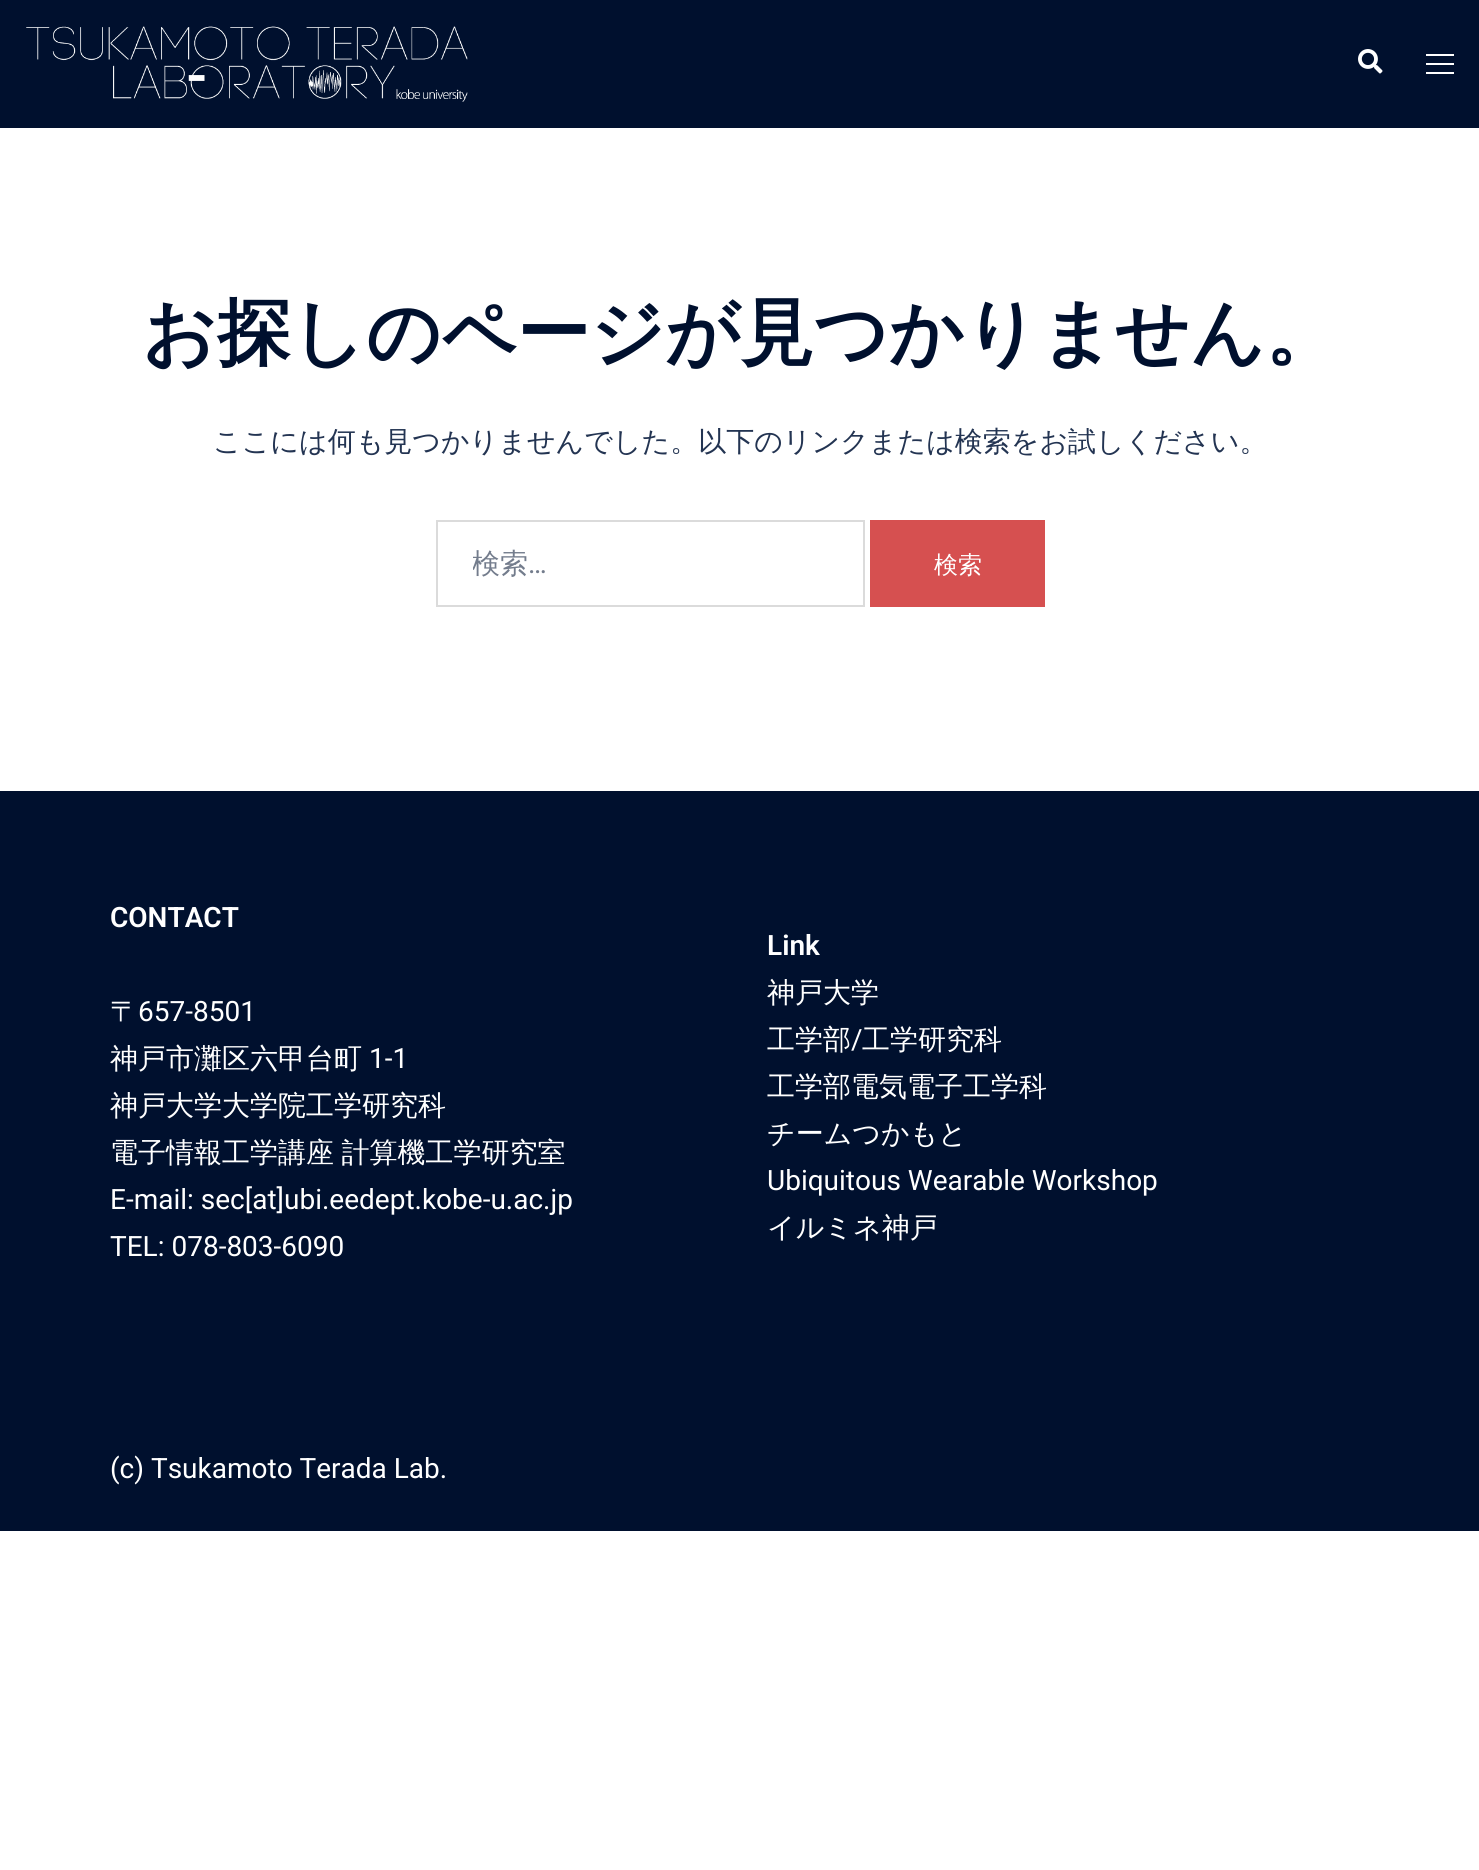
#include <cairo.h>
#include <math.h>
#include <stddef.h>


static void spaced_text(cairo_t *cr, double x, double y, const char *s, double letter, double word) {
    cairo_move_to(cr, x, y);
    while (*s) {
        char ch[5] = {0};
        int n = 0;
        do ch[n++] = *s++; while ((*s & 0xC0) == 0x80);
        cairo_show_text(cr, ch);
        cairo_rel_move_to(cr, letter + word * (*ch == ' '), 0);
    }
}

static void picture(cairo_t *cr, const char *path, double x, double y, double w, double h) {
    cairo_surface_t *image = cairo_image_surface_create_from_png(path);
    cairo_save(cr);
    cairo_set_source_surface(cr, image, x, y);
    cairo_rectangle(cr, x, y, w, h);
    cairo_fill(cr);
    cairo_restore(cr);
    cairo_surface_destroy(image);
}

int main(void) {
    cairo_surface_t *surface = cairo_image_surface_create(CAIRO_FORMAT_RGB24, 1479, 1870);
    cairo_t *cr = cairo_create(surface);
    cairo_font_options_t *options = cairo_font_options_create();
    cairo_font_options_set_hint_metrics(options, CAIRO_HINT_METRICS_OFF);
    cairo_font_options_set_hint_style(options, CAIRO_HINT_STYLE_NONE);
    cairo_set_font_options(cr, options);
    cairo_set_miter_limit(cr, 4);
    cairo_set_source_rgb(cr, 1, 1, 1);
    cairo_paint(cr);
    cairo_set_source_rgb(cr, 0, 0.063, 0.18);
    cairo_rectangle(cr, 0, 0, 1479, 128);
    cairo_fill(cr);
    picture(cr, "img1.png", 26, 26, 442, 76);
    picture(cr, "img2.png", 1358, 49, 25, 25);
    cairo_set_source_rgb(cr, 1, 1, 1);
    cairo_rectangle(cr, 1426, 54, 28, 2);
    cairo_fill(cr);
    cairo_rectangle(cr, 1426, 63, 28, 2);
    cairo_fill(cr);
    cairo_rectangle(cr, 1426, 72, 28, 2);
    cairo_fill(cr);
    cairo_select_font_face(cr, "WenQuanYi Zen Hei", CAIRO_FONT_SLANT_NORMAL, CAIRO_FONT_WEIGHT_BOLD);
    cairo_set_font_size(cr, 73.5);
    cairo_set_source_rgb(cr, 0, 0.063, 0.18);
    cairo_move_to(cr, 142, 358);
    cairo_show_text(cr, "お探しのページが見つかりません。");
    cairo_select_font_face(cr, "WenQuanYi Zen Hei Medium", CAIRO_FONT_SLANT_NORMAL, CAIRO_FONT_WEIGHT_NORMAL);
    cairo_set_font_size(cr, 28);
    cairo_set_source_rgb(cr, 0.137, 0.204, 0.322);
    cairo_move_to(cr, 213, 451);
    cairo_show_text(cr, "ここには何も見つかりませんでした。以下のリンクまたは検索をお試しください。");
    cairo_rectangle(cr, 437, 521, 427, 85);
    cairo_set_source_rgb(cr, 0.859, 0.859, 0.859);
    cairo_stroke(cr);
    cairo_save(cr);
    cairo_rectangle(cr, 473, 546, 329, 37);
    cairo_clip(cr);
    cairo_set_source_rgb(cr, 0.451, 0.486, 0.549);
    cairo_move_to(cr, 472, 573);
    cairo_show_text(cr, "検索");
    cairo_restore(cr);
    cairo_select_font_face(cr, "Roboto", CAIRO_FONT_SLANT_NORMAL, CAIRO_FONT_WEIGHT_NORMAL);
    cairo_set_source_rgb(cr, 0.451, 0.486, 0.549);
    cairo_move_to(cr, 528, 573);
    cairo_show_text(cr, "…");
    cairo_set_source_rgb(cr, 0.839, 0.314, 0.314);
    cairo_rectangle(cr, 870, 520, 175, 87);
    cairo_fill(cr);
    cairo_select_font_face(cr, "WenQuanYi Zen Hei Medium", CAIRO_FONT_SLANT_NORMAL, CAIRO_FONT_WEIGHT_NORMAL);
    cairo_set_font_size(cr, 24);
    cairo_set_source_rgb(cr, 1, 1, 1);
    cairo_move_to(cr, 934, 573);
    cairo_show_text(cr, "検索");
    cairo_set_source_rgb(cr, 0, 0.063, 0.18);
    cairo_rectangle(cr, 0, 791, 1479, 740);
    cairo_fill(cr);
    cairo_select_font_face(cr, "Roboto SemiBold", CAIRO_FONT_SLANT_NORMAL, CAIRO_FONT_WEIGHT_NORMAL);
    cairo_set_font_size(cr, 28);
    cairo_set_source_rgb(cr, 1, 1, 1);
    cairo_move_to(cr, 110, 927);
    cairo_show_text(cr, "CONTACT");
    cairo_select_font_face(cr, "WenQuanYi Zen Hei Medium", CAIRO_FONT_SLANT_NORMAL, CAIRO_FONT_WEIGHT_NORMAL);
    cairo_move_to(cr, 110, 1021);
    cairo_show_text(cr, "〒");
    cairo_select_font_face(cr, "Roboto", CAIRO_FONT_SLANT_NORMAL, CAIRO_FONT_WEIGHT_NORMAL);
    cairo_move_to(cr, 138, 1021);
    cairo_show_text(cr, "657-8501");
    cairo_select_font_face(cr, "WenQuanYi Zen Hei Medium", CAIRO_FONT_SLANT_NORMAL, CAIRO_FONT_WEIGHT_NORMAL);
    cairo_move_to(cr, 110, 1068);
    cairo_show_text(cr, "神戸市灘区六甲台町");
    cairo_select_font_face(cr, "Roboto", CAIRO_FONT_SLANT_NORMAL, CAIRO_FONT_WEIGHT_NORMAL);
    cairo_move_to(cr, 369, 1068);
    cairo_show_text(cr, "1-1");
    cairo_select_font_face(cr, "WenQuanYi Zen Hei Medium", CAIRO_FONT_SLANT_NORMAL, CAIRO_FONT_WEIGHT_NORMAL);
    cairo_move_to(cr, 110, 1115);
    cairo_show_text(cr, "神戸大学大学院工学研究科");
    spaced_text(cr, 110, 1162, "電子情報工学講座 計算機工学研究室", 0, -1);
    cairo_select_font_face(cr, "Roboto", CAIRO_FONT_SLANT_NORMAL, CAIRO_FONT_WEIGHT_NORMAL);
    cairo_move_to(cr, 110, 1209);
    cairo_show_text(cr, "E-mail: sec[at]ubi.eedept.kobe-u.ac.jp");
    cairo_move_to(cr, 110, 1256);
    cairo_show_text(cr, "TEL: 078-803-6090");
    cairo_select_font_face(cr, "Roboto SemiBold", CAIRO_FONT_SLANT_NORMAL, CAIRO_FONT_WEIGHT_NORMAL);
    cairo_move_to(cr, 767, 955);
    cairo_show_text(cr, "Link");
    cairo_select_font_face(cr, "WenQuanYi Zen Hei Medium", CAIRO_FONT_SLANT_NORMAL, CAIRO_FONT_WEIGHT_NORMAL);
    cairo_move_to(cr, 767, 1002);
    cairo_show_text(cr, "神戸大学");
    cairo_move_to(cr, 767, 1049);
    cairo_show_text(cr, "工学部");
    cairo_select_font_face(cr, "Roboto", CAIRO_FONT_SLANT_NORMAL, CAIRO_FONT_WEIGHT_NORMAL);
    cairo_move_to(cr, 851, 1049);
    cairo_show_text(cr, "/");
    cairo_select_font_face(cr, "WenQuanYi Zen Hei Medium", CAIRO_FONT_SLANT_NORMAL, CAIRO_FONT_WEIGHT_NORMAL);
    cairo_move_to(cr, 862, 1049);
    cairo_show_text(cr, "工学研究科");
    cairo_move_to(cr, 767, 1096);
    cairo_show_text(cr, "工学部電気電子工学科");
    cairo_move_to(cr, 767, 1143);
    cairo_show_text(cr, "チームつかもと");
    cairo_select_font_face(cr, "Roboto", CAIRO_FONT_SLANT_NORMAL, CAIRO_FONT_WEIGHT_NORMAL);
    cairo_move_to(cr, 767, 1190);
    cairo_show_text(cr, "Ubiquitous Wearable Workshop");
    cairo_select_font_face(cr, "WenQuanYi Zen Hei Medium", CAIRO_FONT_SLANT_NORMAL, CAIRO_FONT_WEIGHT_NORMAL);
    cairo_move_to(cr, 767, 1237);
    cairo_show_text(cr, "イルミネ神戸");
    cairo_select_font_face(cr, "Roboto", CAIRO_FONT_SLANT_NORMAL, CAIRO_FONT_WEIGHT_NORMAL);
    cairo_move_to(cr, 110, 1478);
    cairo_show_text(cr, "(c) Tsukamoto Terada Lab.");
    cairo_surface_write_to_png(surface, "page.png");
    cairo_font_options_destroy(options);
    cairo_destroy(cr);
    cairo_surface_destroy(surface);
    return 0;
}
